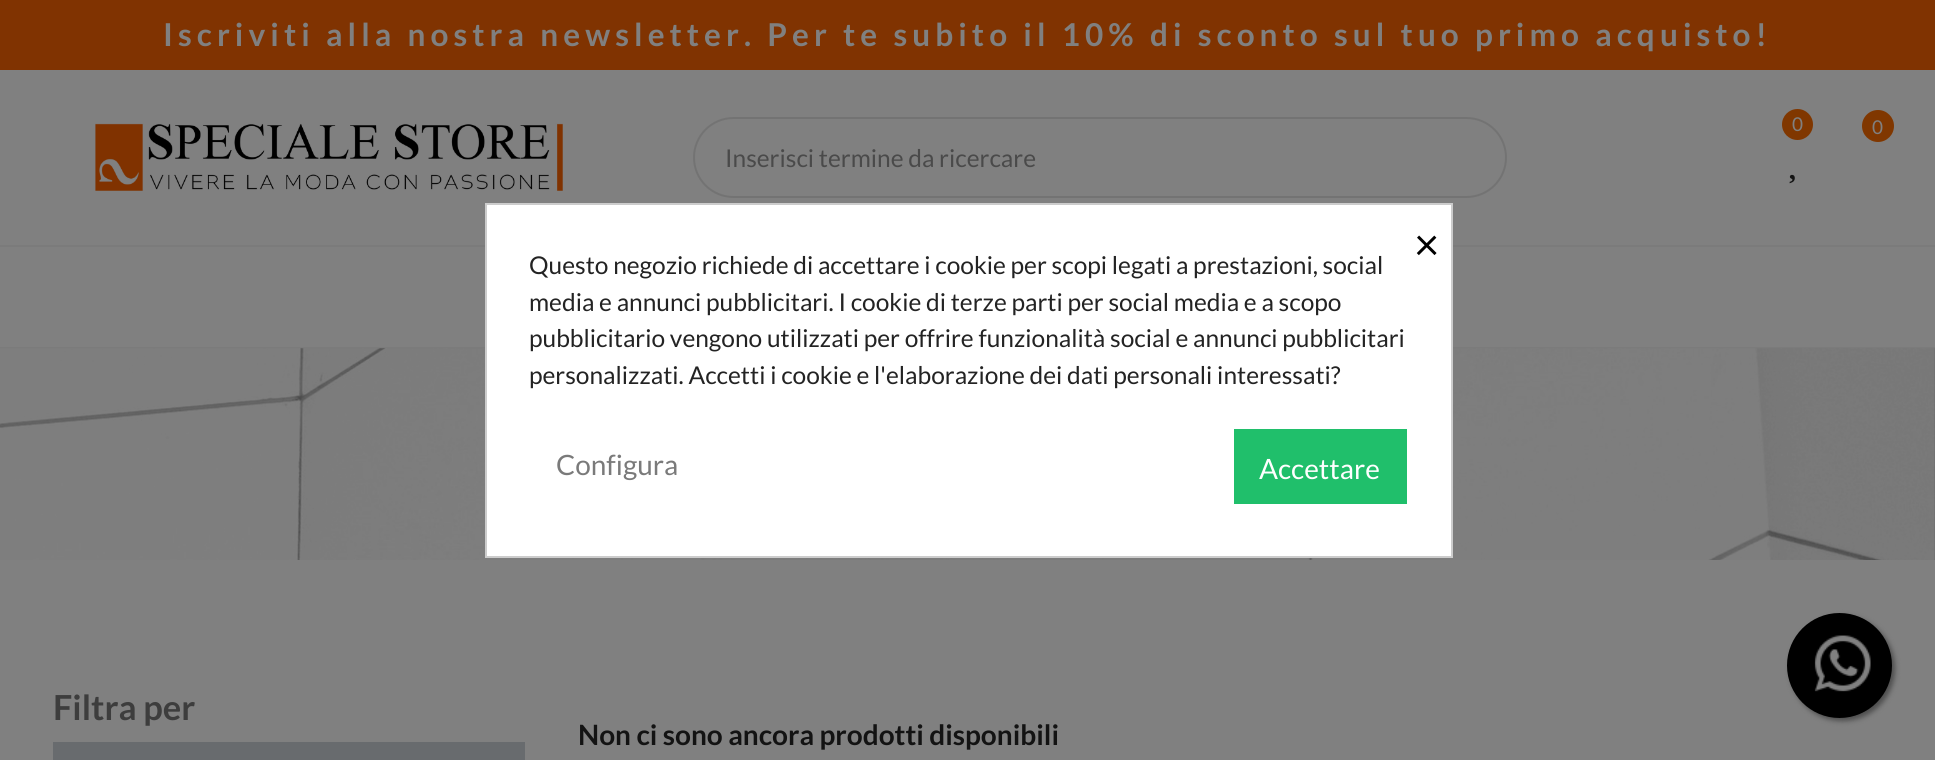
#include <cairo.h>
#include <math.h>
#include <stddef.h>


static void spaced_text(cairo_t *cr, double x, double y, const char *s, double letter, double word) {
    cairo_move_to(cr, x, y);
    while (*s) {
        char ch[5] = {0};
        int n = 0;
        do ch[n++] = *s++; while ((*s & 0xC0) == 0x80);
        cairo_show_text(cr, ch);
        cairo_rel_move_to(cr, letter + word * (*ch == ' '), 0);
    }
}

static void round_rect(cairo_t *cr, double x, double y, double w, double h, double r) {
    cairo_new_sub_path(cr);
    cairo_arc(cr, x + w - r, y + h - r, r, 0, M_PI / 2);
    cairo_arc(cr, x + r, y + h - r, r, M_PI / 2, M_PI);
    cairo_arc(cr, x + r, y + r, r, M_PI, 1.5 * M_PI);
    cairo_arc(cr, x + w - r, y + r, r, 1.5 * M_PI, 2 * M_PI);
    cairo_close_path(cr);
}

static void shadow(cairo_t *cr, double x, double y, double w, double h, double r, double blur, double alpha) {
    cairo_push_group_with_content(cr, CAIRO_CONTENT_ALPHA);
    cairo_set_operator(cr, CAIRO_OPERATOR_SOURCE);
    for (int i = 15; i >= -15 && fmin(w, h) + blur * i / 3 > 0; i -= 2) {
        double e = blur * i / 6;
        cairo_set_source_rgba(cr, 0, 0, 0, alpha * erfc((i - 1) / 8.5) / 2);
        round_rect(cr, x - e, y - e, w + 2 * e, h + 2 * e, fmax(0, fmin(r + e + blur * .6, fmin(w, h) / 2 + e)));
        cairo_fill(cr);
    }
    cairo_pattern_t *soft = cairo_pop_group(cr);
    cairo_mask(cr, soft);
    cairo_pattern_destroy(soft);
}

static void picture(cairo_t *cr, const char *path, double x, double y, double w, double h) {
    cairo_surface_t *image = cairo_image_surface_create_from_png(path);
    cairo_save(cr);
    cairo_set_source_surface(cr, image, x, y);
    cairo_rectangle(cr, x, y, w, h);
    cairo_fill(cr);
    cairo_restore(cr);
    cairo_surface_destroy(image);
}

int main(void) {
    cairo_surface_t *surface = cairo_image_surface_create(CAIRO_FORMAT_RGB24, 1935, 760);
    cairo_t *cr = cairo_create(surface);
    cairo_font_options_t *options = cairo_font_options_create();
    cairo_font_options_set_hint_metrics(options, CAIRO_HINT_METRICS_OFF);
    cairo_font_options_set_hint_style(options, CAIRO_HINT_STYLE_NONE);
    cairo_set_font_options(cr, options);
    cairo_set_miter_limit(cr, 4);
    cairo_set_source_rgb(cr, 0.502, 0.502, 0.502);
    cairo_paint(cr);
    cairo_set_source_rgb(cr, 0.502, 0.2, 0.004);
    cairo_rectangle(cr, 0, 0, 1935, 70);
    cairo_fill(cr);
    cairo_select_font_face(cr, "Lato", CAIRO_FONT_SLANT_NORMAL, CAIRO_FONT_WEIGHT_BOLD);
    cairo_set_font_size(cr, 31.5);
    cairo_set_source_rgb(cr, 0.502, 0.502, 0.502);
    spaced_text(cr, 163, 46, "Iscriviti alla nostra newsletter. Per te subito il 10% di sconto sul tuo primo acquisto!", 5.08, 0);
    cairo_set_source_rgb(cr, 0.482, 0.482, 0.482);
    cairo_rectangle(cr, 0, 245, 1935, 2);
    cairo_fill(cr);
    picture(cr, "img1.png", 95, 123, 468, 68);
    round_rect(cr, 694, 118, 812, 79, 39.5);
    cairo_set_source_rgb(cr, 0.451, 0.451, 0.451);
    cairo_stroke(cr);
    cairo_select_font_face(cr, "Lato", CAIRO_FONT_SLANT_NORMAL, CAIRO_FONT_WEIGHT_NORMAL);
    cairo_set_font_size(cr, 24.5);
    cairo_set_source_rgb(cr, 0.29, 0.29, 0.29);
    cairo_move_to(cr, 725, 167);
    cairo_show_text(cr, "Inserisci termine da ricercare");
    cairo_set_source_rgb(cr, 0.502, 0.216, 0);
    cairo_new_path(cr);
    cairo_arc(cr, 1797.5, 124.5, 15.5, 0, 2 * M_PI);
    cairo_fill(cr);
    cairo_set_font_size(cr, 19);
    cairo_set_source_rgb(cr, 0.502, 0.502, 0.502);
    cairo_move_to(cr, 1792, 131);
    cairo_show_text(cr, "0");
    picture(cr, "img2.png", 1789, 174, 6, 10);
    cairo_set_source_rgb(cr, 0.502, 0.216, 0);
    cairo_arc(cr, 1878, 126, 16, 0, 2 * M_PI);
    cairo_fill(cr);
    cairo_set_source_rgb(cr, 0.502, 0.502, 0.502);
    cairo_move_to(cr, 1872, 134);
    cairo_show_text(cr, "0");
    cairo_set_source_rgb(cr, 0.482, 0.482, 0.482);
    cairo_rectangle(cr, 0, 347, 1935, 2);
    cairo_fill(cr);
    picture(cr, "img3.png", 0, 348, 1935, 212);
    cairo_select_font_face(cr, "Lato", CAIRO_FONT_SLANT_NORMAL, CAIRO_FONT_WEIGHT_BOLD);
    cairo_set_font_size(cr, 34.5);
    cairo_set_source_rgb(cr, 0.239, 0.239, 0.239);
    cairo_move_to(cr, 53, 720);
    cairo_show_text(cr, "Filtra per");
    cairo_set_source_rgb(cr, 0.408, 0.42, 0.431);
    cairo_rectangle(cr, 53, 742, 472, 18);
    cairo_fill(cr);
    cairo_set_font_size(cr, 28);
    cairo_set_source_rgb(cr, 0.078, 0.078, 0.078);
    cairo_move_to(cr, 578, 745);
    cairo_show_text(cr, "Non ci sono ancora prodotti disponibili");
    cairo_set_source_rgb(cr, 1, 1, 1);
    cairo_rectangle(cr, 486, 204, 966, 353);
    cairo_fill_preserve(cr);
    cairo_set_source_rgb(cr, 0.8, 0.8, 0.8);
    cairo_stroke(cr);
    cairo_select_font_face(cr, "Lato", CAIRO_FONT_SLANT_NORMAL, CAIRO_FONT_WEIGHT_NORMAL);
    cairo_set_font_size(cr, 44);
    cairo_set_source_rgb(cr, 0, 0, 0);
    cairo_move_to(cr, 1414, 260);
    cairo_show_text(cr, "×");
    cairo_set_font_size(cr, 24.5);
    cairo_set_source_rgb(cr, 0.137, 0.137, 0.137);
    cairo_move_to(cr, 529, 274);
    cairo_show_text(cr, "Questo negozio richiede di accettare i cookie per scopi legati a prestazioni, social");
    cairo_move_to(cr, 529, 311);
    cairo_show_text(cr, "media e annunci pubblicitari. I cookie di terze parti per social media e a scopo");
    cairo_move_to(cr, 529, 347);
    cairo_show_text(cr, "pubblicitario vengono utilizzati per offrire funzionalità social e annunci pubblicitari");
    cairo_move_to(cr, 529, 384);
    cairo_show_text(cr, "personalizzati. Accetti i cookie e l'elaborazione dei dati personali interessati?");
    cairo_set_font_size(cr, 28);
    cairo_set_source_rgb(cr, 0.478, 0.478, 0.478);
    cairo_move_to(cr, 556, 475);
    cairo_show_text(cr, "Configura");
    cairo_set_source_rgb(cr, 0.125, 0.749, 0.42);
    cairo_rectangle(cr, 1234, 429, 173, 75);
    cairo_fill(cr);
    cairo_set_source_rgb(cr, 1, 1, 1);
    cairo_move_to(cr, 1259, 479);
    cairo_show_text(cr, "Accettare");
    cairo_set_source_rgb(cr, 0.302, 0.302, 0.302);
    shadow(cr, 1790, 616, 105, 105, 52.5, 2.5, 1);
    cairo_set_source_rgb(cr, 0, 0, 0);
    cairo_arc(cr, 1839.5, 665.5, 52.5, 0, 2 * M_PI);
    cairo_fill(cr);
    picture(cr, "img4.png", 1814, 635, 57, 57);
    cairo_surface_write_to_png(surface, "page.png");
    cairo_font_options_destroy(options);
    cairo_destroy(cr);
    cairo_surface_destroy(surface);
    return 0;
}
